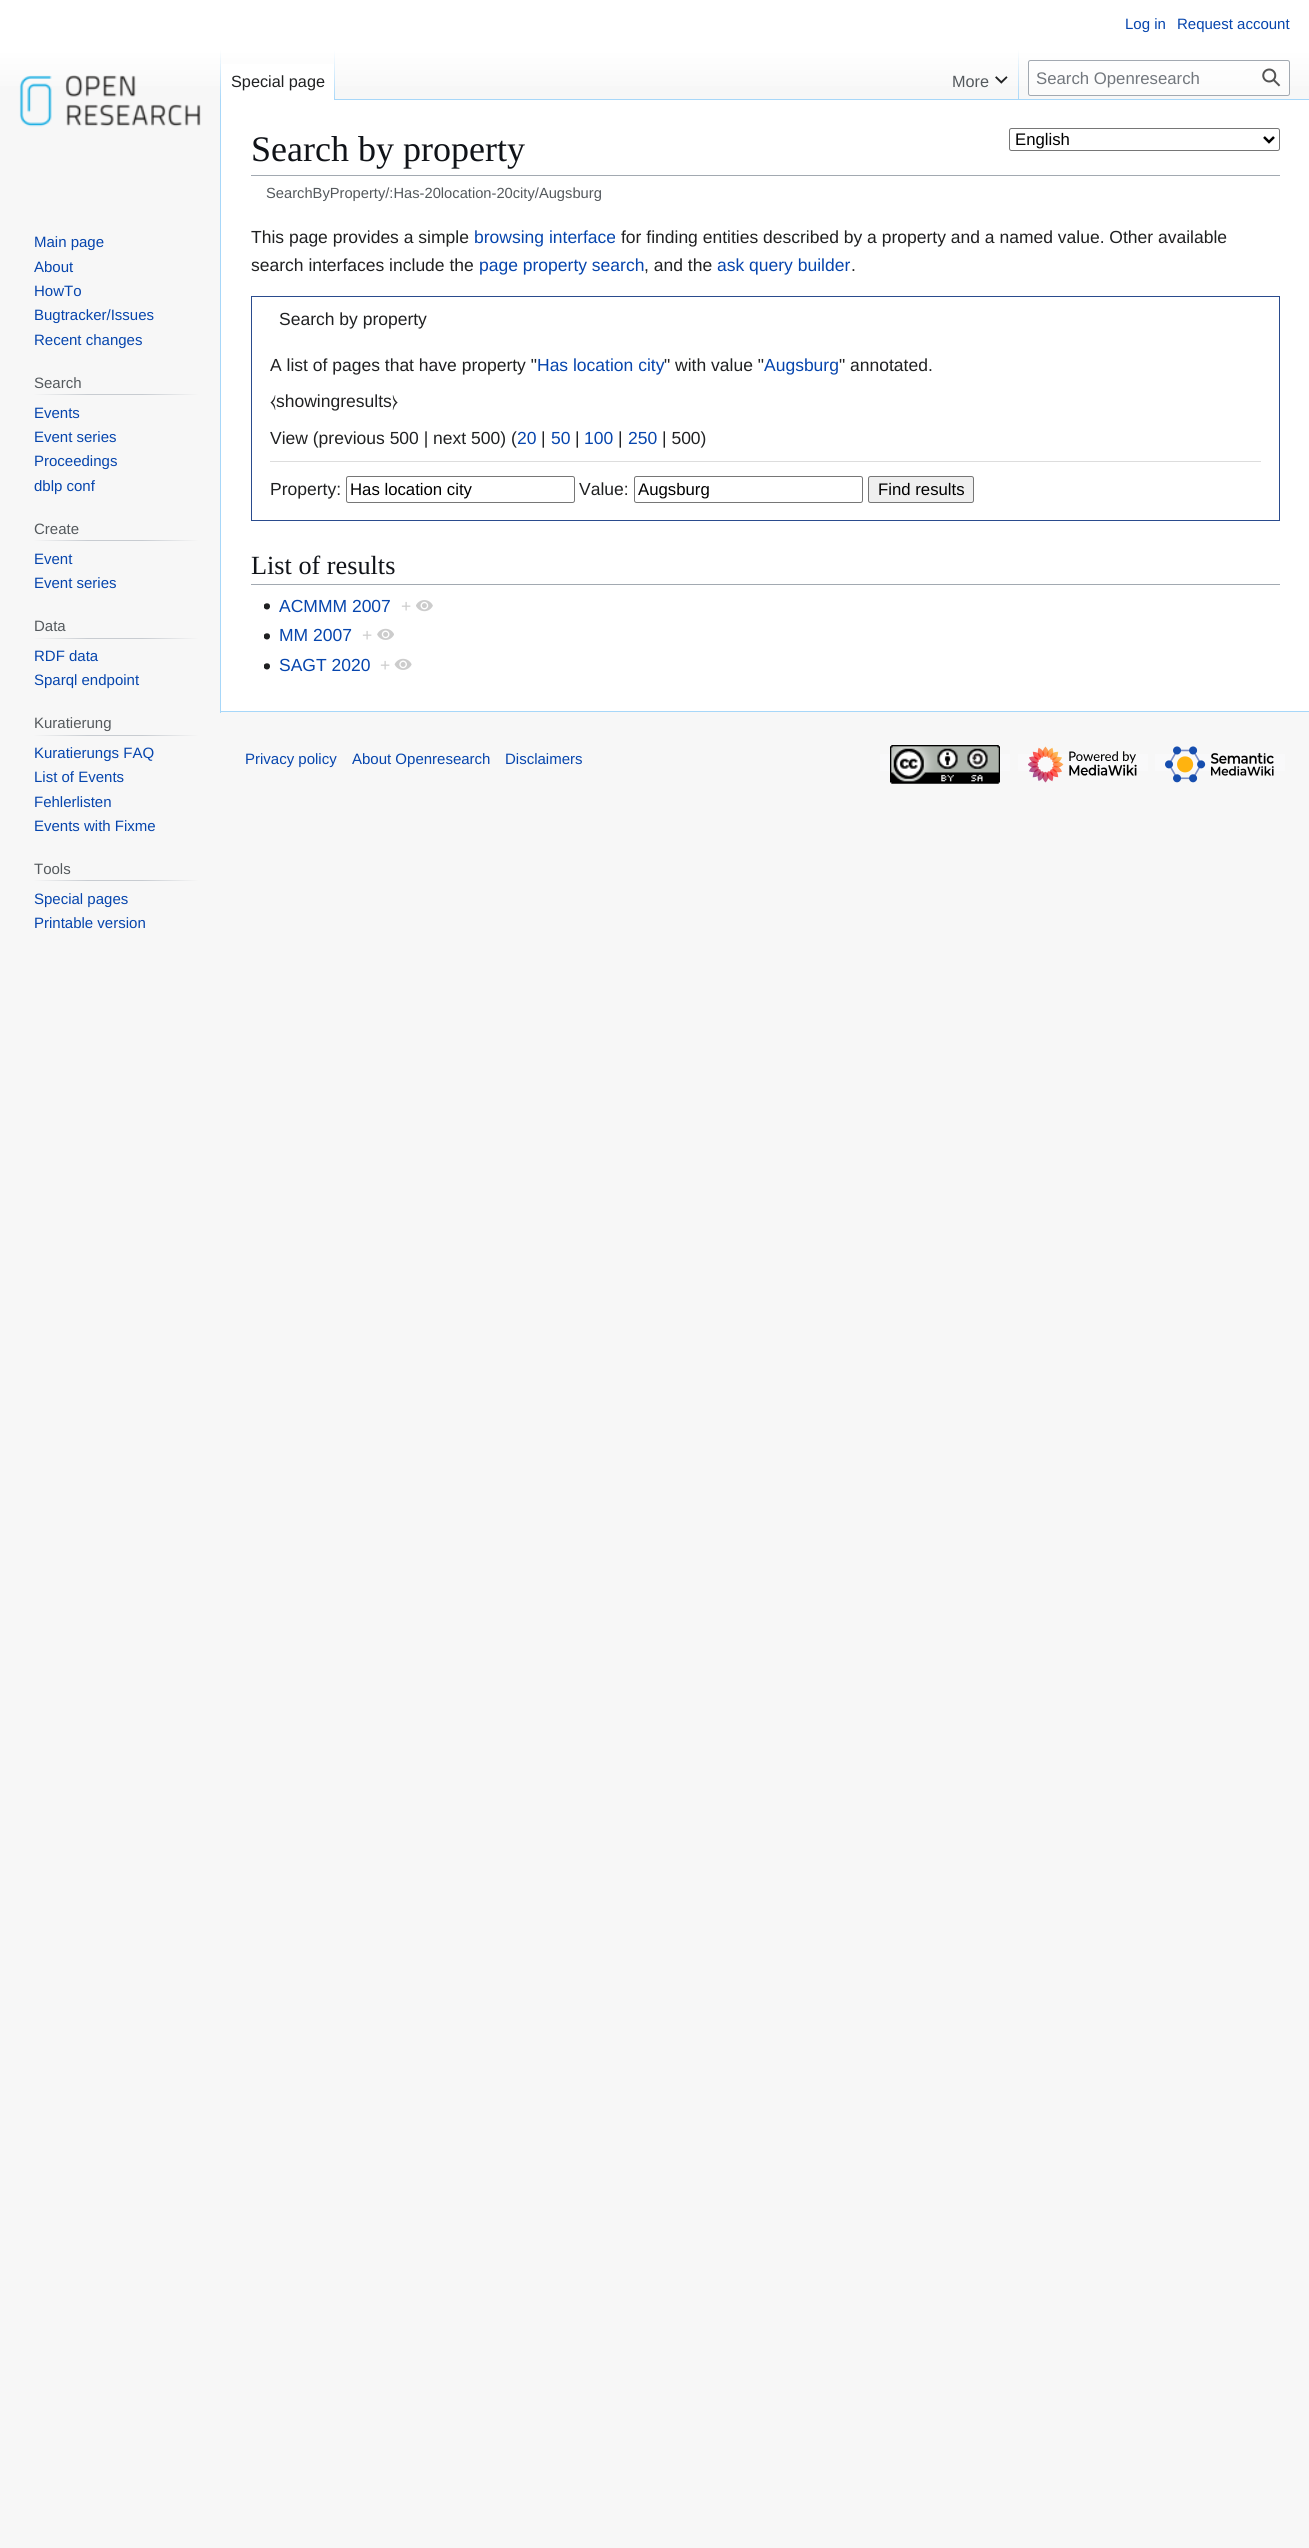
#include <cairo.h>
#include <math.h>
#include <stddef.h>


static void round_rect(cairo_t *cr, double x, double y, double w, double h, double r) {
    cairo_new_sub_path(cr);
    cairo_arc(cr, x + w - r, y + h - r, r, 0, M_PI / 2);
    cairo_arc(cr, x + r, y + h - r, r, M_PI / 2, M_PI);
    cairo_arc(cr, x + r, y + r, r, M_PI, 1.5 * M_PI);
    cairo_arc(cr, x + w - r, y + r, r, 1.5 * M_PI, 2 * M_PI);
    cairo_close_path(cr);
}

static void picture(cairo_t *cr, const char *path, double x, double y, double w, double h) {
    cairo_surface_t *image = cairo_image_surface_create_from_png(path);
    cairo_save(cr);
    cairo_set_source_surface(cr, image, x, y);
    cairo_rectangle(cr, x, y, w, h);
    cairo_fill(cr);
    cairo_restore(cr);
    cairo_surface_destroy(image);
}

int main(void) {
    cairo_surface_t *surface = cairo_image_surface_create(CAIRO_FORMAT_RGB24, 1309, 2548);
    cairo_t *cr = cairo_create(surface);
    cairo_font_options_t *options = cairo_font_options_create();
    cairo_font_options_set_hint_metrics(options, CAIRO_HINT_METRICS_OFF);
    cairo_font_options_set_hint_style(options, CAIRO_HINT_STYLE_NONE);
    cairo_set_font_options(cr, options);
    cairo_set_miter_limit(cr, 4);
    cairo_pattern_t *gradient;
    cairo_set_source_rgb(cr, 0.965, 0.965, 0.965);
    cairo_paint(cr);
    gradient = cairo_pattern_create_linear(655, 0, 655, 100);
    cairo_pattern_add_color_stop_rgba(gradient, 0.5, 1, 1, 1, 1);
    cairo_pattern_add_color_stop_rgba(gradient, 1, 0.965, 0.965, 0.965, 1);
    cairo_set_source(cr, gradient);
    cairo_pattern_destroy(gradient);
    cairo_rectangle(cr, 0, 0, 1309, 86);
    cairo_fill(cr);
    cairo_select_font_face(cr, "Liberation Sans", CAIRO_FONT_SLANT_NORMAL, CAIRO_FONT_WEIGHT_NORMAL);
    cairo_set_font_size(cr, 15);
    cairo_set_source_rgb(cr, 0.024, 0.271, 0.678);
    cairo_move_to(cr, 1125, 29);
    cairo_show_text(cr, "Log in");
    cairo_move_to(cr, 1177, 29);
    cairo_show_text(cr, "Request account");
    cairo_set_source_rgb(cr, 0.655, 0.843, 0.976);
    cairo_rectangle(cr, 220, 711, 1089, 1);
    cairo_fill(cr);
    cairo_rectangle(cr, 220, 99, 1, 614);
    cairo_fill(cr);
    gradient = cairo_pattern_create_linear(221, 50, 221, 100);
    cairo_pattern_add_color_stop_rgba(gradient, 0, 0.655, 0.843, 0.976, 0);
    cairo_pattern_add_color_stop_rgba(gradient, 1, 0.655, 0.843, 0.976, 1);
    cairo_set_source(cr, gradient);
    cairo_pattern_destroy(gradient);
    cairo_rectangle(cr, 220, 50, 1, 50);
    cairo_fill(cr);
    cairo_set_source_rgb(cr, 1, 1, 1);
    cairo_rectangle(cr, 221, 64, 113, 36);
    cairo_fill(cr);
    gradient = cairo_pattern_create_linear(334, 50, 334, 100);
    cairo_pattern_add_color_stop_rgba(gradient, 0, 1, 1, 1, 1);
    cairo_pattern_add_color_stop_rgba(gradient, 1, 0.655, 0.843, 0.976, 1);
    cairo_set_source(cr, gradient);
    cairo_pattern_destroy(gradient);
    cairo_rectangle(cr, 334, 50, 1, 50);
    cairo_fill(cr);
    cairo_set_font_size(cr, 16.25);
    cairo_set_source_rgb(cr, 0.125, 0.129, 0.133);
    cairo_move_to(cr, 231, 87);
    cairo_show_text(cr, "Special page");
    cairo_set_source_rgb(cr, 0.655, 0.843, 0.976);
    cairo_rectangle(cr, 335, 99, 974, 1);
    cairo_fill(cr);
    gradient = cairo_pattern_create_linear(1018, 50, 1018, 100);
    cairo_pattern_add_color_stop_rgba(gradient, 0, 0.655, 0.843, 0.976, 0);
    cairo_pattern_add_color_stop_rgba(gradient, 1, 0.655, 0.843, 0.976, 1);
    cairo_set_source(cr, gradient);
    cairo_pattern_destroy(gradient);
    cairo_rectangle(cr, 1018, 50, 1, 50);
    cairo_fill(cr);
    cairo_set_source_rgb(cr, 0.329, 0.349, 0.365);
    cairo_move_to(cr, 952, 87);
    cairo_show_text(cr, "More");
    picture(cr, "img1.png", 995, 76, 13, 8);
    cairo_set_source_rgba(cr, 1, 1, 1, 0.5);
    round_rect(cr, 1028.5, 60.5, 261, 35, 2);
    cairo_fill_preserve(cr);
    cairo_set_source_rgb(cr, 0.635, 0.663, 0.694);
    cairo_set_line_width(cr, 1);
    cairo_stroke(cr);
    cairo_set_font_size(cr, 16.75);
    cairo_set_source_rgb(cr, 0.447, 0.467, 0.49);
    cairo_move_to(cr, 1036, 84);
    cairo_show_text(cr, "Search Openresearch");
    picture(cr, "img2.png", 1262, 68, 19, 19);
    picture(cr, "img3.png", 19, 75, 182, 52);
    cairo_set_font_size(cr, 15);
    cairo_set_source_rgb(cr, 0.024, 0.271, 0.678);
    cairo_move_to(cr, 34, 247);
    cairo_show_text(cr, "Main page");
    cairo_move_to(cr, 34, 272);
    cairo_show_text(cr, "About");
    cairo_move_to(cr, 34, 296);
    cairo_show_text(cr, "HowTo");
    cairo_move_to(cr, 34, 320);
    cairo_show_text(cr, "Bugtracker/Issues");
    cairo_move_to(cr, 34, 345);
    cairo_show_text(cr, "Recent changes");
    gradient = cairo_pattern_create_linear(34, 394, 198, 394);
    cairo_pattern_add_color_stop_rgba(gradient, 0, 0.965, 0.965, 0.965, 1);
    cairo_pattern_add_color_stop_rgba(gradient, 0.33, 0.784, 0.8, 0.82, 1);
    cairo_pattern_add_color_stop_rgba(gradient, 0.66, 0.784, 0.8, 0.82, 1);
    cairo_pattern_add_color_stop_rgba(gradient, 1, 0.965, 0.965, 0.965, 1);
    cairo_set_source(cr, gradient);
    cairo_pattern_destroy(gradient);
    cairo_rectangle(cr, 34, 394, 164, 1);
    cairo_fill(cr);
    cairo_set_source_rgb(cr, 0.329, 0.349, 0.365);
    cairo_move_to(cr, 34, 388);
    cairo_show_text(cr, "Search");
    cairo_set_source_rgb(cr, 0.024, 0.271, 0.678);
    cairo_move_to(cr, 34, 418);
    cairo_show_text(cr, "Events");
    cairo_move_to(cr, 34, 442);
    cairo_show_text(cr, "Event series");
    cairo_move_to(cr, 34, 466);
    cairo_show_text(cr, "Proceedings");
    cairo_move_to(cr, 34, 491);
    cairo_show_text(cr, "dblp conf");
    gradient = cairo_pattern_create_linear(34, 541, 198, 541);
    cairo_pattern_add_color_stop_rgba(gradient, 0, 0.965, 0.965, 0.965, 1);
    cairo_pattern_add_color_stop_rgba(gradient, 0.33, 0.784, 0.8, 0.82, 1);
    cairo_pattern_add_color_stop_rgba(gradient, 0.66, 0.784, 0.8, 0.82, 1);
    cairo_pattern_add_color_stop_rgba(gradient, 1, 0.965, 0.965, 0.965, 1);
    cairo_set_source(cr, gradient);
    cairo_pattern_destroy(gradient);
    cairo_rectangle(cr, 34, 540, 164, 1);
    cairo_fill(cr);
    cairo_set_source_rgb(cr, 0.329, 0.349, 0.365);
    cairo_move_to(cr, 34, 534);
    cairo_show_text(cr, "Create");
    cairo_set_source_rgb(cr, 0.024, 0.271, 0.678);
    cairo_move_to(cr, 34, 564);
    cairo_show_text(cr, "Event");
    cairo_move_to(cr, 34, 588);
    cairo_show_text(cr, "Event series");
    gradient = cairo_pattern_create_linear(34, 638, 198, 638);
    cairo_pattern_add_color_stop_rgba(gradient, 0, 0.965, 0.965, 0.965, 1);
    cairo_pattern_add_color_stop_rgba(gradient, 0.33, 0.784, 0.8, 0.82, 1);
    cairo_pattern_add_color_stop_rgba(gradient, 0.66, 0.784, 0.8, 0.82, 1);
    cairo_pattern_add_color_stop_rgba(gradient, 1, 0.965, 0.965, 0.965, 1);
    cairo_set_source(cr, gradient);
    cairo_pattern_destroy(gradient);
    cairo_rectangle(cr, 34, 638, 164, 1);
    cairo_fill(cr);
    cairo_set_source_rgb(cr, 0.329, 0.349, 0.365);
    cairo_move_to(cr, 34, 631);
    cairo_show_text(cr, "Data");
    cairo_set_source_rgb(cr, 0.024, 0.271, 0.678);
    cairo_move_to(cr, 34, 661);
    cairo_show_text(cr, "RDF data");
    cairo_move_to(cr, 34, 685);
    cairo_show_text(cr, "Sparql endpoint");
    gradient = cairo_pattern_create_linear(34, 736, 198, 736);
    cairo_pattern_add_color_stop_rgba(gradient, 0, 0.965, 0.965, 0.965, 1);
    cairo_pattern_add_color_stop_rgba(gradient, 0.33, 0.784, 0.8, 0.82, 1);
    cairo_pattern_add_color_stop_rgba(gradient, 0.66, 0.784, 0.8, 0.82, 1);
    cairo_pattern_add_color_stop_rgba(gradient, 1, 0.965, 0.965, 0.965, 1);
    cairo_set_source(cr, gradient);
    cairo_pattern_destroy(gradient);
    cairo_rectangle(cr, 34, 735, 164, 1);
    cairo_fill(cr);
    cairo_set_source_rgb(cr, 0.329, 0.349, 0.365);
    cairo_move_to(cr, 34, 728);
    cairo_show_text(cr, "Kuratierung");
    cairo_set_source_rgb(cr, 0.024, 0.271, 0.678);
    cairo_move_to(cr, 34, 758);
    cairo_show_text(cr, "Kuratierungs FAQ");
    cairo_move_to(cr, 34, 782);
    cairo_show_text(cr, "List of Events");
    cairo_move_to(cr, 34, 807);
    cairo_show_text(cr, "Fehlerlisten");
    cairo_move_to(cr, 34, 831);
    cairo_show_text(cr, "Events with Fixme");
    gradient = cairo_pattern_create_linear(34, 881, 198, 881);
    cairo_pattern_add_color_stop_rgba(gradient, 0, 0.965, 0.965, 0.965, 1);
    cairo_pattern_add_color_stop_rgba(gradient, 0.33, 0.784, 0.8, 0.82, 1);
    cairo_pattern_add_color_stop_rgba(gradient, 0.66, 0.784, 0.8, 0.82, 1);
    cairo_pattern_add_color_stop_rgba(gradient, 1, 0.965, 0.965, 0.965, 1);
    cairo_set_source(cr, gradient);
    cairo_pattern_destroy(gradient);
    cairo_rectangle(cr, 34, 880, 164, 1);
    cairo_fill(cr);
    cairo_set_source_rgb(cr, 0.329, 0.349, 0.365);
    cairo_move_to(cr, 34, 874);
    cairo_show_text(cr, "Tools");
    cairo_set_source_rgb(cr, 0.024, 0.271, 0.678);
    cairo_move_to(cr, 34, 904);
    cairo_show_text(cr, "Special pages");
    cairo_move_to(cr, 34, 928);
    cairo_show_text(cr, "Printable version");
    cairo_set_source_rgb(cr, 1, 1, 1);
    cairo_rectangle(cr, 221, 100, 1088, 611);
    cairo_fill(cr);
    cairo_set_source_rgb(cr, 0.635, 0.663, 0.694);
    cairo_rectangle(cr, 251, 175, 1029, 1);
    cairo_fill(cr);
    cairo_select_font_face(cr, "Liberation Serif", CAIRO_FONT_SLANT_NORMAL, CAIRO_FONT_WEIGHT_NORMAL);
    cairo_set_font_size(cr, 36);
    cairo_set_source_rgb(cr, 0.063, 0.078, 0.094);
    cairo_move_to(cr, 251, 161);
    cairo_show_text(cr, "Search by property");
    round_rect(cr, 1009.5, 128.5, 270, 22, 2);
    cairo_set_source_rgb(cr, 0.463, 0.463, 0.463);
    cairo_stroke(cr);
    cairo_new_path(cr);
    cairo_move_to(cr, 1264, 137);
    cairo_line_to(cr, 1269, 142);
    cairo_line_to(cr, 1274, 137);
    cairo_set_source_rgb(cr, 0, 0, 0);
    cairo_set_line_width(cr, 2.5);
    cairo_stroke(cr);
    cairo_select_font_face(cr, "Liberation Sans", CAIRO_FONT_SLANT_NORMAL, CAIRO_FONT_WEIGHT_NORMAL);
    cairo_set_font_size(cr, 16.75);
    cairo_move_to(cr, 1015, 145);
    cairo_show_text(cr, "English");
    cairo_set_font_size(cr, 14.7);
    cairo_set_source_rgb(cr, 0.329, 0.349, 0.365);
    cairo_move_to(cr, 266, 198);
    cairo_show_text(cr, "SearchByProperty/:Has-20location-20city/Augsburg");
    cairo_set_font_size(cr, 17.5);
    cairo_set_source_rgb(cr, 0.125, 0.129, 0.133);
    cairo_move_to(cr, 251, 243);
    cairo_show_text(cr, "This page provides a simple");
    cairo_set_source_rgb(cr, 0.024, 0.271, 0.678);
    cairo_move_to(cr, 474, 243);
    cairo_show_text(cr, "browsing interface");
    cairo_set_source_rgb(cr, 0.125, 0.129, 0.133);
    cairo_move_to(cr, 621, 243);
    cairo_show_text(cr, "for finding entities described by a property and a named value. Other available");
    cairo_move_to(cr, 251, 271);
    cairo_show_text(cr, "search interfaces include the");
    cairo_set_source_rgb(cr, 0.024, 0.271, 0.678);
    cairo_move_to(cr, 479, 271);
    cairo_show_text(cr, "page property search");
    cairo_set_source_rgb(cr, 0.125, 0.129, 0.133);
    cairo_move_to(cr, 644, 271);
    cairo_show_text(cr, ", and the");
    cairo_set_source_rgb(cr, 0.024, 0.271, 0.678);
    cairo_move_to(cr, 717, 271);
    cairo_show_text(cr, "ask query builder");
    cairo_set_source_rgb(cr, 0.125, 0.129, 0.133);
    cairo_move_to(cr, 851, 271);
    cairo_show_text(cr, ".");
    cairo_rectangle(cr, 251.5, 296.5, 1028, 224);
    cairo_set_source_rgb(cr, 0.165, 0.294, 0.553);
    cairo_set_line_width(cr, 1);
    cairo_stroke(cr);
    cairo_set_source_rgb(cr, 0.125, 0.129, 0.133);
    cairo_move_to(cr, 279, 325);
    cairo_show_text(cr, "Search by property");
    cairo_move_to(cr, 270, 371);
    cairo_show_text(cr, "A list of pages that have property \"");
    cairo_set_source_rgb(cr, 0.024, 0.271, 0.678);
    cairo_move_to(cr, 537, 371);
    cairo_show_text(cr, "Has location city");
    cairo_set_source_rgb(cr, 0.125, 0.129, 0.133);
    cairo_move_to(cr, 664, 371);
    cairo_show_text(cr, "\" with value \"");
    cairo_set_source_rgb(cr, 0.024, 0.271, 0.678);
    cairo_move_to(cr, 764, 371);
    cairo_show_text(cr, "Augsburg");
    cairo_set_source_rgb(cr, 0.125, 0.129, 0.133);
    cairo_move_to(cr, 839, 371);
    cairo_show_text(cr, "\" annotated.");
    cairo_select_font_face(cr, "FreeSerif", CAIRO_FONT_SLANT_NORMAL, CAIRO_FONT_WEIGHT_NORMAL);
    cairo_move_to(cr, 270, 407);
    cairo_show_text(cr, "⧼");
    cairo_select_font_face(cr, "Liberation Sans", CAIRO_FONT_SLANT_NORMAL, CAIRO_FONT_WEIGHT_NORMAL);
    cairo_move_to(cr, 276, 407);
    cairo_show_text(cr, "showingresults");
    cairo_select_font_face(cr, "FreeSerif", CAIRO_FONT_SLANT_NORMAL, CAIRO_FONT_WEIGHT_NORMAL);
    cairo_move_to(cr, 392, 407);
    cairo_show_text(cr, "⧽");
    cairo_select_font_face(cr, "Liberation Sans", CAIRO_FONT_SLANT_NORMAL, CAIRO_FONT_WEIGHT_NORMAL);
    cairo_move_to(cr, 270, 444);
    cairo_show_text(cr, "View (previous 500 | next 500) (");
    cairo_set_source_rgb(cr, 0.024, 0.271, 0.678);
    cairo_move_to(cr, 517, 444);
    cairo_show_text(cr, "20");
    cairo_set_source_rgb(cr, 0.125, 0.129, 0.133);
    cairo_move_to(cr, 541, 444);
    cairo_show_text(cr, "|");
    cairo_set_source_rgb(cr, 0.024, 0.271, 0.678);
    cairo_move_to(cr, 551, 444);
    cairo_show_text(cr, "50");
    cairo_set_source_rgb(cr, 0.125, 0.129, 0.133);
    cairo_move_to(cr, 575, 444);
    cairo_show_text(cr, "|");
    cairo_set_source_rgb(cr, 0.024, 0.271, 0.678);
    cairo_move_to(cr, 584, 444);
    cairo_show_text(cr, "100");
    cairo_set_source_rgb(cr, 0.125, 0.129, 0.133);
    cairo_move_to(cr, 618, 444);
    cairo_show_text(cr, "|");
    cairo_set_source_rgb(cr, 0.024, 0.271, 0.678);
    cairo_move_to(cr, 628, 444);
    cairo_show_text(cr, "250");
    cairo_set_source_rgb(cr, 0.125, 0.129, 0.133);
    cairo_move_to(cr, 662, 444);
    cairo_show_text(cr, "| 500)");
    cairo_set_source_rgb(cr, 0.867, 0.867, 0.867);
    cairo_rectangle(cr, 270, 461, 991, 1);
    cairo_fill(cr);
    cairo_set_source_rgb(cr, 0.125, 0.129, 0.133);
    cairo_move_to(cr, 270, 495);
    cairo_show_text(cr, "Property:");
    round_rect(cr, 346.5, 476.5, 228, 26, 2);
    cairo_set_source_rgb(cr, 0.463, 0.463, 0.463);
    cairo_stroke(cr);
    cairo_set_font_size(cr, 16.75);
    cairo_set_source_rgb(cr, 0, 0, 0);
    cairo_move_to(cr, 350, 495);
    cairo_show_text(cr, "Has location city");
    cairo_set_font_size(cr, 17.5);
    cairo_set_source_rgb(cr, 0.125, 0.129, 0.133);
    cairo_move_to(cr, 579, 495);
    cairo_show_text(cr, "Value:");
    round_rect(cr, 634.5, 476.5, 228, 26, 2);
    cairo_set_source_rgb(cr, 0.463, 0.463, 0.463);
    cairo_stroke(cr);
    cairo_set_font_size(cr, 16.75);
    cairo_set_source_rgb(cr, 0, 0, 0);
    cairo_move_to(cr, 638, 495);
    cairo_show_text(cr, "Augsburg");
    cairo_set_source_rgb(cr, 0.937, 0.937, 0.937);
    round_rect(cr, 868.5, 476.5, 105, 26, 2);
    cairo_fill_preserve(cr);
    cairo_set_source_rgb(cr, 0.463, 0.463, 0.463);
    cairo_stroke(cr);
    cairo_set_source_rgb(cr, 0, 0, 0);
    cairo_move_to(cr, 878, 495);
    cairo_show_text(cr, "Find results");
    cairo_set_source_rgb(cr, 0.635, 0.663, 0.694);
    cairo_rectangle(cr, 251, 584, 1029, 1);
    cairo_fill(cr);
    cairo_select_font_face(cr, "Liberation Serif", CAIRO_FONT_SLANT_NORMAL, CAIRO_FONT_WEIGHT_NORMAL);
    cairo_set_font_size(cr, 26.25);
    cairo_set_source_rgb(cr, 0.063, 0.078, 0.094);
    cairo_move_to(cr, 251, 574);
    cairo_show_text(cr, "List of results");
    picture(cr, "img4.png", 264, 603, 6, 7);
    cairo_select_font_face(cr, "Liberation Sans", CAIRO_FONT_SLANT_NORMAL, CAIRO_FONT_WEIGHT_NORMAL);
    cairo_set_font_size(cr, 17.5);
    cairo_set_source_rgb(cr, 0.024, 0.271, 0.678);
    cairo_move_to(cr, 279, 612);
    cairo_show_text(cr, "ACMMM 2007");
    cairo_set_source_rgb(cr, 0.8, 0.8, 0.8);
    cairo_move_to(cr, 401, 612);
    cairo_show_text(cr, "+");
    picture(cr, "img5.png", 416, 600, 17, 12);
    picture(cr, "img4.png", 264, 633, 6, 7);
    cairo_set_source_rgb(cr, 0.024, 0.271, 0.678);
    cairo_move_to(cr, 279, 641);
    cairo_show_text(cr, "MM 2007");
    cairo_set_source_rgb(cr, 0.8, 0.8, 0.8);
    cairo_move_to(cr, 362, 641);
    cairo_show_text(cr, "+");
    picture(cr, "img6.png", 377, 628, 17, 12);
    picture(cr, "img4.png", 264, 663, 6, 7);
    cairo_set_source_rgb(cr, 0.024, 0.271, 0.678);
    cairo_move_to(cr, 279, 671);
    cairo_show_text(cr, "SAGT 2020");
    cairo_set_source_rgb(cr, 0.8, 0.8, 0.8);
    cairo_move_to(cr, 380, 671);
    cairo_show_text(cr, "+");
    picture(cr, "img7.png", 394, 658, 18, 12);
    cairo_set_font_size(cr, 15);
    cairo_set_source_rgb(cr, 0.024, 0.271, 0.678);
    cairo_move_to(cr, 245, 764);
    cairo_show_text(cr, "Privacy policy");
    cairo_move_to(cr, 352, 764);
    cairo_show_text(cr, "About Openresearch");
    cairo_move_to(cr, 505, 764);
    cairo_show_text(cr, "Disclaimers");
    cairo_set_source_rgb(cr, 0.973, 0.976, 0.98);
    cairo_rectangle(cr, 880, 754, 130, 17);
    cairo_fill(cr);
    picture(cr, "img8.png", 890, 745, 110, 39);
    cairo_rectangle(cr, 1018, 754, 130, 17);
    cairo_fill(cr);
    picture(cr, "img9.png", 1028, 746, 109, 37);
    cairo_rectangle(cr, 1155, 754, 130, 17);
    cairo_fill(cr);
    picture(cr, "img10.png", 1165, 746, 109, 37);
    cairo_surface_write_to_png(surface, "page.png");
    cairo_font_options_destroy(options);
    cairo_destroy(cr);
    cairo_surface_destroy(surface);
    return 0;
}
